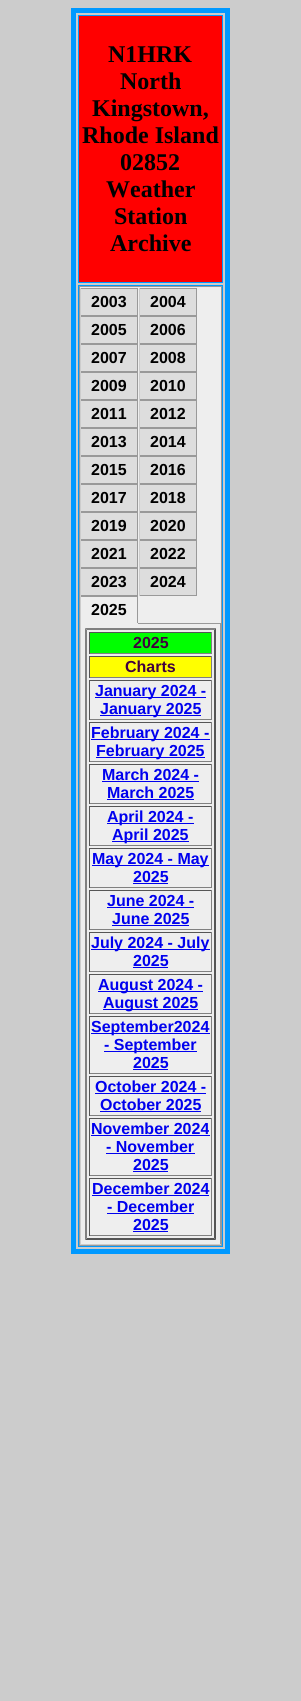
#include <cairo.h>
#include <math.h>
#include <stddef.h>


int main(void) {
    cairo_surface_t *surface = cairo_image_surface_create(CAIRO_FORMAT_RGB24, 301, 1701);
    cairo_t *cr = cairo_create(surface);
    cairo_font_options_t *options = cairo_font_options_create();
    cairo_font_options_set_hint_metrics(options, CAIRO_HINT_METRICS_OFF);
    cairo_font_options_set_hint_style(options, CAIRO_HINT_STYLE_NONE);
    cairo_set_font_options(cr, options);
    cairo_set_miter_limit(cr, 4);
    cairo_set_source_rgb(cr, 0.8, 0.8, 0.8);
    cairo_paint(cr);
    cairo_rectangle(cr, 73.5, 10.5, 154, 1241);
    cairo_set_source_rgb(cr, 0, 0.6, 1);
    cairo_set_line_width(cr, 5);
    cairo_stroke(cr);
    cairo_set_source_rgb(cr, 1, 0, 0);
    cairo_rectangle(cr, 78.5, 15.5, 144, 267);
    cairo_fill_preserve(cr);
    cairo_set_source_rgb(cr, 0, 0.6, 1);
    cairo_set_line_width(cr, 1);
    cairo_stroke(cr);
    cairo_select_font_face(cr, "Liberation Serif", CAIRO_FONT_SLANT_NORMAL, CAIRO_FONT_WEIGHT_BOLD);
    cairo_set_font_size(cr, 24);
    cairo_set_source_rgb(cr, 0, 0, 0);
    cairo_move_to(cr, 108, 62);
    cairo_show_text(cr, "N1HRK");
    cairo_move_to(cr, 120, 89);
    cairo_show_text(cr, "North");
    cairo_move_to(cr, 92, 116);
    cairo_show_text(cr, "Kingstown,");
    cairo_move_to(cr, 82, 143);
    cairo_show_text(cr, "Rhode Island");
    cairo_move_to(cr, 120, 170);
    cairo_show_text(cr, "02852");
    cairo_move_to(cr, 106, 197);
    cairo_show_text(cr, "Weather");
    cairo_move_to(cr, 114, 224);
    cairo_show_text(cr, "Station");
    cairo_move_to(cr, 110, 251);
    cairo_show_text(cr, "Archive");
    cairo_set_source_rgb(cr, 0.6, 0.6, 0.6);
    cairo_rectangle(cr, 78.5, 285.5, 144, 961);
    cairo_fill_preserve(cr);
    cairo_set_source_rgb(cr, 0, 0.6, 1);
    cairo_stroke(cr);
    cairo_set_source_rgb(cr, 0.933, 0.933, 0.933);
    cairo_rectangle(cr, 80, 287, 141, 957);
    cairo_fill(cr);
    cairo_set_source_rgb(cr, 0.867, 0.867, 0.867);
    cairo_rectangle(cr, 81, 289, 56, 26);
    cairo_fill(cr);
    cairo_set_source_rgb(cr, 0.6, 0.6, 0.6);
    cairo_rectangle(cr, 80, 288, 58, 1);
    cairo_fill(cr);
    cairo_rectangle(cr, 137, 288, 1, 28);
    cairo_fill(cr);
    cairo_rectangle(cr, 80, 315, 58, 2);
    cairo_fill(cr);
    cairo_set_source_rgb(cr, 0.8, 0.8, 0.8);
    cairo_rectangle(cr, 80, 288, 1, 28);
    cairo_fill(cr);
    cairo_select_font_face(cr, "Liberation Sans", CAIRO_FONT_SLANT_NORMAL, CAIRO_FONT_WEIGHT_BOLD);
    cairo_set_font_size(cr, 16);
    cairo_set_source_rgb(cr, 0, 0, 0);
    cairo_move_to(cr, 91, 307);
    cairo_show_text(cr, "2003");
    cairo_set_source_rgb(cr, 0.867, 0.867, 0.867);
    cairo_rectangle(cr, 140, 289, 56, 26);
    cairo_fill(cr);
    cairo_set_source_rgb(cr, 0.6, 0.6, 0.6);
    cairo_rectangle(cr, 139, 288, 58, 1);
    cairo_fill(cr);
    cairo_rectangle(cr, 196, 288, 1, 28);
    cairo_fill(cr);
    cairo_rectangle(cr, 139, 315, 58, 2);
    cairo_fill(cr);
    cairo_set_source_rgb(cr, 0.8, 0.8, 0.8);
    cairo_rectangle(cr, 139, 288, 1, 28);
    cairo_fill(cr);
    cairo_set_source_rgb(cr, 0, 0, 0);
    cairo_move_to(cr, 150, 307);
    cairo_show_text(cr, "2004");
    cairo_set_source_rgb(cr, 0.867, 0.867, 0.867);
    cairo_rectangle(cr, 81, 317, 56, 26);
    cairo_fill(cr);
    cairo_set_source_rgb(cr, 0.6, 0.6, 0.6);
    cairo_rectangle(cr, 137, 316, 1, 28);
    cairo_fill(cr);
    cairo_rectangle(cr, 80, 343, 58, 2);
    cairo_fill(cr);
    cairo_set_source_rgb(cr, 0.8, 0.8, 0.8);
    cairo_rectangle(cr, 80, 316, 1, 28);
    cairo_fill(cr);
    cairo_set_source_rgb(cr, 0, 0, 0);
    cairo_move_to(cr, 91, 335);
    cairo_show_text(cr, "2005");
    cairo_set_source_rgb(cr, 0.867, 0.867, 0.867);
    cairo_rectangle(cr, 140, 317, 56, 26);
    cairo_fill(cr);
    cairo_set_source_rgb(cr, 0.6, 0.6, 0.6);
    cairo_rectangle(cr, 196, 316, 1, 28);
    cairo_fill(cr);
    cairo_rectangle(cr, 139, 343, 58, 2);
    cairo_fill(cr);
    cairo_set_source_rgb(cr, 0.8, 0.8, 0.8);
    cairo_rectangle(cr, 139, 316, 1, 28);
    cairo_fill(cr);
    cairo_set_source_rgb(cr, 0, 0, 0);
    cairo_move_to(cr, 150, 335);
    cairo_show_text(cr, "2006");
    cairo_set_source_rgb(cr, 0.867, 0.867, 0.867);
    cairo_rectangle(cr, 81, 345, 56, 26);
    cairo_fill(cr);
    cairo_set_source_rgb(cr, 0.6, 0.6, 0.6);
    cairo_rectangle(cr, 137, 344, 1, 28);
    cairo_fill(cr);
    cairo_rectangle(cr, 80, 371, 58, 2);
    cairo_fill(cr);
    cairo_set_source_rgb(cr, 0.8, 0.8, 0.8);
    cairo_rectangle(cr, 80, 344, 1, 28);
    cairo_fill(cr);
    cairo_set_source_rgb(cr, 0, 0, 0);
    cairo_move_to(cr, 91, 363);
    cairo_show_text(cr, "2007");
    cairo_set_source_rgb(cr, 0.867, 0.867, 0.867);
    cairo_rectangle(cr, 140, 345, 56, 26);
    cairo_fill(cr);
    cairo_set_source_rgb(cr, 0.6, 0.6, 0.6);
    cairo_rectangle(cr, 196, 344, 1, 28);
    cairo_fill(cr);
    cairo_rectangle(cr, 139, 371, 58, 2);
    cairo_fill(cr);
    cairo_set_source_rgb(cr, 0.8, 0.8, 0.8);
    cairo_rectangle(cr, 139, 344, 1, 28);
    cairo_fill(cr);
    cairo_set_source_rgb(cr, 0, 0, 0);
    cairo_move_to(cr, 150, 363);
    cairo_show_text(cr, "2008");
    cairo_set_source_rgb(cr, 0.867, 0.867, 0.867);
    cairo_rectangle(cr, 81, 373, 56, 26);
    cairo_fill(cr);
    cairo_set_source_rgb(cr, 0.6, 0.6, 0.6);
    cairo_rectangle(cr, 137, 372, 1, 28);
    cairo_fill(cr);
    cairo_rectangle(cr, 80, 399, 58, 2);
    cairo_fill(cr);
    cairo_set_source_rgb(cr, 0.8, 0.8, 0.8);
    cairo_rectangle(cr, 80, 372, 1, 28);
    cairo_fill(cr);
    cairo_set_source_rgb(cr, 0, 0, 0);
    cairo_move_to(cr, 91, 391);
    cairo_show_text(cr, "2009");
    cairo_set_source_rgb(cr, 0.867, 0.867, 0.867);
    cairo_rectangle(cr, 140, 373, 56, 26);
    cairo_fill(cr);
    cairo_set_source_rgb(cr, 0.6, 0.6, 0.6);
    cairo_rectangle(cr, 196, 372, 1, 28);
    cairo_fill(cr);
    cairo_rectangle(cr, 139, 399, 58, 2);
    cairo_fill(cr);
    cairo_set_source_rgb(cr, 0.8, 0.8, 0.8);
    cairo_rectangle(cr, 139, 372, 1, 28);
    cairo_fill(cr);
    cairo_set_source_rgb(cr, 0, 0, 0);
    cairo_move_to(cr, 150, 391);
    cairo_show_text(cr, "2010");
    cairo_set_source_rgb(cr, 0.867, 0.867, 0.867);
    cairo_rectangle(cr, 81, 401, 56, 26);
    cairo_fill(cr);
    cairo_set_source_rgb(cr, 0.6, 0.6, 0.6);
    cairo_rectangle(cr, 137, 400, 1, 28);
    cairo_fill(cr);
    cairo_rectangle(cr, 80, 427, 58, 2);
    cairo_fill(cr);
    cairo_set_source_rgb(cr, 0.8, 0.8, 0.8);
    cairo_rectangle(cr, 80, 400, 1, 28);
    cairo_fill(cr);
    cairo_set_source_rgb(cr, 0, 0, 0);
    cairo_move_to(cr, 91, 419);
    cairo_show_text(cr, "2011");
    cairo_set_source_rgb(cr, 0.867, 0.867, 0.867);
    cairo_rectangle(cr, 140, 401, 56, 26);
    cairo_fill(cr);
    cairo_set_source_rgb(cr, 0.6, 0.6, 0.6);
    cairo_rectangle(cr, 196, 400, 1, 28);
    cairo_fill(cr);
    cairo_rectangle(cr, 139, 427, 58, 2);
    cairo_fill(cr);
    cairo_set_source_rgb(cr, 0.8, 0.8, 0.8);
    cairo_rectangle(cr, 139, 400, 1, 28);
    cairo_fill(cr);
    cairo_set_source_rgb(cr, 0, 0, 0);
    cairo_move_to(cr, 150, 419);
    cairo_show_text(cr, "2012");
    cairo_set_source_rgb(cr, 0.867, 0.867, 0.867);
    cairo_rectangle(cr, 81, 429, 56, 26);
    cairo_fill(cr);
    cairo_set_source_rgb(cr, 0.6, 0.6, 0.6);
    cairo_rectangle(cr, 137, 428, 1, 28);
    cairo_fill(cr);
    cairo_rectangle(cr, 80, 455, 58, 2);
    cairo_fill(cr);
    cairo_set_source_rgb(cr, 0.8, 0.8, 0.8);
    cairo_rectangle(cr, 80, 428, 1, 28);
    cairo_fill(cr);
    cairo_set_source_rgb(cr, 0, 0, 0);
    cairo_move_to(cr, 91, 447);
    cairo_show_text(cr, "2013");
    cairo_set_source_rgb(cr, 0.867, 0.867, 0.867);
    cairo_rectangle(cr, 140, 429, 56, 26);
    cairo_fill(cr);
    cairo_set_source_rgb(cr, 0.6, 0.6, 0.6);
    cairo_rectangle(cr, 196, 428, 1, 28);
    cairo_fill(cr);
    cairo_rectangle(cr, 139, 455, 58, 2);
    cairo_fill(cr);
    cairo_set_source_rgb(cr, 0.8, 0.8, 0.8);
    cairo_rectangle(cr, 139, 428, 1, 28);
    cairo_fill(cr);
    cairo_set_source_rgb(cr, 0, 0, 0);
    cairo_move_to(cr, 150, 447);
    cairo_show_text(cr, "2014");
    cairo_set_source_rgb(cr, 0.867, 0.867, 0.867);
    cairo_rectangle(cr, 81, 457, 56, 26);
    cairo_fill(cr);
    cairo_set_source_rgb(cr, 0.6, 0.6, 0.6);
    cairo_rectangle(cr, 137, 456, 1, 28);
    cairo_fill(cr);
    cairo_rectangle(cr, 80, 483, 58, 2);
    cairo_fill(cr);
    cairo_set_source_rgb(cr, 0.8, 0.8, 0.8);
    cairo_rectangle(cr, 80, 456, 1, 28);
    cairo_fill(cr);
    cairo_set_source_rgb(cr, 0, 0, 0);
    cairo_move_to(cr, 91, 475);
    cairo_show_text(cr, "2015");
    cairo_set_source_rgb(cr, 0.867, 0.867, 0.867);
    cairo_rectangle(cr, 140, 457, 56, 26);
    cairo_fill(cr);
    cairo_set_source_rgb(cr, 0.6, 0.6, 0.6);
    cairo_rectangle(cr, 196, 456, 1, 28);
    cairo_fill(cr);
    cairo_rectangle(cr, 139, 483, 58, 2);
    cairo_fill(cr);
    cairo_set_source_rgb(cr, 0.8, 0.8, 0.8);
    cairo_rectangle(cr, 139, 456, 1, 28);
    cairo_fill(cr);
    cairo_set_source_rgb(cr, 0, 0, 0);
    cairo_move_to(cr, 150, 475);
    cairo_show_text(cr, "2016");
    cairo_set_source_rgb(cr, 0.867, 0.867, 0.867);
    cairo_rectangle(cr, 81, 485, 56, 26);
    cairo_fill(cr);
    cairo_set_source_rgb(cr, 0.6, 0.6, 0.6);
    cairo_rectangle(cr, 137, 484, 1, 28);
    cairo_fill(cr);
    cairo_rectangle(cr, 80, 511, 58, 2);
    cairo_fill(cr);
    cairo_set_source_rgb(cr, 0.8, 0.8, 0.8);
    cairo_rectangle(cr, 80, 484, 1, 28);
    cairo_fill(cr);
    cairo_set_source_rgb(cr, 0, 0, 0);
    cairo_move_to(cr, 91, 503);
    cairo_show_text(cr, "2017");
    cairo_set_source_rgb(cr, 0.867, 0.867, 0.867);
    cairo_rectangle(cr, 140, 485, 56, 26);
    cairo_fill(cr);
    cairo_set_source_rgb(cr, 0.6, 0.6, 0.6);
    cairo_rectangle(cr, 196, 484, 1, 28);
    cairo_fill(cr);
    cairo_rectangle(cr, 139, 511, 58, 2);
    cairo_fill(cr);
    cairo_set_source_rgb(cr, 0.8, 0.8, 0.8);
    cairo_rectangle(cr, 139, 484, 1, 28);
    cairo_fill(cr);
    cairo_set_source_rgb(cr, 0, 0, 0);
    cairo_move_to(cr, 150, 503);
    cairo_show_text(cr, "2018");
    cairo_set_source_rgb(cr, 0.867, 0.867, 0.867);
    cairo_rectangle(cr, 81, 513, 56, 26);
    cairo_fill(cr);
    cairo_set_source_rgb(cr, 0.6, 0.6, 0.6);
    cairo_rectangle(cr, 137, 512, 1, 28);
    cairo_fill(cr);
    cairo_rectangle(cr, 80, 539, 58, 2);
    cairo_fill(cr);
    cairo_set_source_rgb(cr, 0.8, 0.8, 0.8);
    cairo_rectangle(cr, 80, 512, 1, 28);
    cairo_fill(cr);
    cairo_set_source_rgb(cr, 0, 0, 0);
    cairo_move_to(cr, 91, 531);
    cairo_show_text(cr, "2019");
    cairo_set_source_rgb(cr, 0.867, 0.867, 0.867);
    cairo_rectangle(cr, 140, 513, 56, 26);
    cairo_fill(cr);
    cairo_set_source_rgb(cr, 0.6, 0.6, 0.6);
    cairo_rectangle(cr, 196, 512, 1, 28);
    cairo_fill(cr);
    cairo_rectangle(cr, 139, 539, 58, 2);
    cairo_fill(cr);
    cairo_set_source_rgb(cr, 0.8, 0.8, 0.8);
    cairo_rectangle(cr, 139, 512, 1, 28);
    cairo_fill(cr);
    cairo_set_source_rgb(cr, 0, 0, 0);
    cairo_move_to(cr, 150, 531);
    cairo_show_text(cr, "2020");
    cairo_set_source_rgb(cr, 0.867, 0.867, 0.867);
    cairo_rectangle(cr, 81, 541, 56, 26);
    cairo_fill(cr);
    cairo_set_source_rgb(cr, 0.6, 0.6, 0.6);
    cairo_rectangle(cr, 137, 540, 1, 28);
    cairo_fill(cr);
    cairo_rectangle(cr, 80, 567, 58, 2);
    cairo_fill(cr);
    cairo_set_source_rgb(cr, 0.8, 0.8, 0.8);
    cairo_rectangle(cr, 80, 540, 1, 28);
    cairo_fill(cr);
    cairo_set_source_rgb(cr, 0, 0, 0);
    cairo_move_to(cr, 91, 559);
    cairo_show_text(cr, "2021");
    cairo_set_source_rgb(cr, 0.867, 0.867, 0.867);
    cairo_rectangle(cr, 140, 541, 56, 26);
    cairo_fill(cr);
    cairo_set_source_rgb(cr, 0.6, 0.6, 0.6);
    cairo_rectangle(cr, 196, 540, 1, 28);
    cairo_fill(cr);
    cairo_rectangle(cr, 139, 567, 58, 2);
    cairo_fill(cr);
    cairo_set_source_rgb(cr, 0.8, 0.8, 0.8);
    cairo_rectangle(cr, 139, 540, 1, 28);
    cairo_fill(cr);
    cairo_set_source_rgb(cr, 0, 0, 0);
    cairo_move_to(cr, 150, 559);
    cairo_show_text(cr, "2022");
    cairo_set_source_rgb(cr, 0.867, 0.867, 0.867);
    cairo_rectangle(cr, 81, 569, 56, 26);
    cairo_fill(cr);
    cairo_set_source_rgb(cr, 0.6, 0.6, 0.6);
    cairo_rectangle(cr, 137, 568, 1, 28);
    cairo_fill(cr);
    cairo_rectangle(cr, 80, 595, 58, 2);
    cairo_fill(cr);
    cairo_set_source_rgb(cr, 0.8, 0.8, 0.8);
    cairo_rectangle(cr, 80, 568, 1, 28);
    cairo_fill(cr);
    cairo_set_source_rgb(cr, 0, 0, 0);
    cairo_move_to(cr, 91, 587);
    cairo_show_text(cr, "2023");
    cairo_set_source_rgb(cr, 0.867, 0.867, 0.867);
    cairo_rectangle(cr, 140, 569, 56, 26);
    cairo_fill(cr);
    cairo_set_source_rgb(cr, 0.6, 0.6, 0.6);
    cairo_rectangle(cr, 196, 568, 1, 28);
    cairo_fill(cr);
    cairo_rectangle(cr, 139, 595, 58, 1);
    cairo_fill(cr);
    cairo_set_source_rgb(cr, 0.8, 0.8, 0.8);
    cairo_rectangle(cr, 139, 568, 1, 28);
    cairo_fill(cr);
    cairo_set_source_rgb(cr, 0, 0, 0);
    cairo_move_to(cr, 150, 587);
    cairo_show_text(cr, "2024");
    cairo_set_source_rgb(cr, 0.6, 0.6, 0.6);
    cairo_rectangle(cr, 137, 596, 1, 28);
    cairo_fill(cr);
    cairo_rectangle(cr, 138, 623, 83, 1);
    cairo_fill(cr);
    cairo_rectangle(cr, 220, 623, 1, 622);
    cairo_fill(cr);
    cairo_set_source_rgb(cr, 0.8, 0.8, 0.8);
    cairo_rectangle(cr, 80, 1244, 141, 1);
    cairo_fill(cr);
    cairo_rectangle(cr, 80, 623, 1, 622);
    cairo_fill(cr);
    cairo_set_source_rgb(cr, 0.933, 0.933, 0.933);
    cairo_rectangle(cr, 80, 623, 58, 1);
    cairo_fill(cr);
    cairo_set_source_rgb(cr, 0.8, 0.8, 0.8);
    cairo_rectangle(cr, 80, 596, 1, 28);
    cairo_fill(cr);
    cairo_set_source_rgb(cr, 0, 0, 0);
    cairo_move_to(cr, 91, 615);
    cairo_show_text(cr, "2025");
    cairo_set_source_rgb(cr, 0.502, 0.502, 0.502);
    cairo_new_path(cr);
    cairo_move_to(cr, 85, 628);
    cairo_line_to(cr, 216, 628);
    cairo_line_to(cr, 214, 630);
    cairo_line_to(cr, 87, 630);
    cairo_close_path(cr);
    cairo_fill(cr);
    cairo_set_source_rgb(cr, 0.333, 0.333, 0.333);
    cairo_new_path(cr);
    cairo_move_to(cr, 216, 628);
    cairo_line_to(cr, 216, 1240);
    cairo_line_to(cr, 214, 1238);
    cairo_line_to(cr, 214, 630);
    cairo_close_path(cr);
    cairo_fill(cr);
    cairo_new_path(cr);
    cairo_move_to(cr, 216, 1240);
    cairo_line_to(cr, 85, 1240);
    cairo_line_to(cr, 87, 1238);
    cairo_line_to(cr, 214, 1238);
    cairo_close_path(cr);
    cairo_fill(cr);
    cairo_set_source_rgb(cr, 0.502, 0.502, 0.502);
    cairo_new_path(cr);
    cairo_move_to(cr, 85, 1240);
    cairo_line_to(cr, 85, 628);
    cairo_line_to(cr, 87, 630);
    cairo_line_to(cr, 87, 1238);
    cairo_close_path(cr);
    cairo_fill(cr);
    cairo_set_source_rgb(cr, 0, 1, 0);
    cairo_rectangle(cr, 90, 633, 121, 20);
    cairo_fill(cr);
    cairo_set_source_rgb(cr, 0.333, 0.333, 0.333);
    cairo_rectangle(cr, 89, 632, 123, 1);
    cairo_fill(cr);
    cairo_set_source_rgb(cr, 0.502, 0.502, 0.502);
    cairo_rectangle(cr, 211, 632, 1, 22);
    cairo_fill(cr);
    cairo_rectangle(cr, 89, 653, 123, 1);
    cairo_fill(cr);
    cairo_set_source_rgb(cr, 0.333, 0.333, 0.333);
    cairo_rectangle(cr, 89, 632, 1, 22);
    cairo_fill(cr);
    cairo_set_source_rgb(cr, 0.251, 0, 0.251);
    cairo_move_to(cr, 133, 648);
    cairo_show_text(cr, "2025");
    cairo_set_source_rgb(cr, 1, 1, 0);
    cairo_rectangle(cr, 90, 657, 121, 20);
    cairo_fill(cr);
    cairo_set_source_rgb(cr, 0.333, 0.333, 0.333);
    cairo_rectangle(cr, 89, 656, 123, 1);
    cairo_fill(cr);
    cairo_set_source_rgb(cr, 0.502, 0.502, 0.502);
    cairo_rectangle(cr, 211, 656, 1, 22);
    cairo_fill(cr);
    cairo_rectangle(cr, 89, 677, 123, 1);
    cairo_fill(cr);
    cairo_set_source_rgb(cr, 0.333, 0.333, 0.333);
    cairo_rectangle(cr, 89, 656, 1, 22);
    cairo_fill(cr);
    cairo_set_source_rgb(cr, 0.251, 0, 0.251);
    cairo_move_to(cr, 125, 672);
    cairo_show_text(cr, "Charts");
    cairo_set_source_rgb(cr, 0.333, 0.333, 0.333);
    cairo_rectangle(cr, 89, 680, 123, 1);
    cairo_fill(cr);
    cairo_set_source_rgb(cr, 0.502, 0.502, 0.502);
    cairo_rectangle(cr, 211, 680, 1, 40);
    cairo_fill(cr);
    cairo_rectangle(cr, 89, 719, 123, 1);
    cairo_fill(cr);
    cairo_set_source_rgb(cr, 0.333, 0.333, 0.333);
    cairo_rectangle(cr, 89, 680, 1, 40);
    cairo_fill(cr);
    cairo_set_source_rgb(cr, 0, 0, 0.933);
    cairo_rectangle(cr, 95, 697, 111, 1);
    cairo_fill(cr);
    cairo_move_to(cr, 95, 696);
    cairo_show_text(cr, "January 2024 -");
    cairo_rectangle(cr, 100, 715, 101, 1);
    cairo_fill(cr);
    cairo_move_to(cr, 100, 714);
    cairo_show_text(cr, "January 2025");
    cairo_set_source_rgb(cr, 0.333, 0.333, 0.333);
    cairo_rectangle(cr, 89, 722, 123, 1);
    cairo_fill(cr);
    cairo_set_source_rgb(cr, 0.502, 0.502, 0.502);
    cairo_rectangle(cr, 211, 722, 1, 40);
    cairo_fill(cr);
    cairo_rectangle(cr, 89, 761, 123, 1);
    cairo_fill(cr);
    cairo_set_source_rgb(cr, 0.333, 0.333, 0.333);
    cairo_rectangle(cr, 89, 722, 1, 40);
    cairo_fill(cr);
    cairo_set_source_rgb(cr, 0, 0, 0.933);
    cairo_rectangle(cr, 91, 739, 119, 1);
    cairo_fill(cr);
    cairo_move_to(cr, 91, 738);
    cairo_show_text(cr, "February 2024 -");
    cairo_rectangle(cr, 96, 757, 109, 1);
    cairo_fill(cr);
    cairo_move_to(cr, 96, 756);
    cairo_show_text(cr, "February 2025");
    cairo_set_source_rgb(cr, 0.333, 0.333, 0.333);
    cairo_rectangle(cr, 89, 764, 123, 1);
    cairo_fill(cr);
    cairo_set_source_rgb(cr, 0.502, 0.502, 0.502);
    cairo_rectangle(cr, 211, 764, 1, 40);
    cairo_fill(cr);
    cairo_rectangle(cr, 89, 803, 123, 1);
    cairo_fill(cr);
    cairo_set_source_rgb(cr, 0.333, 0.333, 0.333);
    cairo_rectangle(cr, 89, 764, 1, 40);
    cairo_fill(cr);
    cairo_set_source_rgb(cr, 0, 0, 0.933);
    cairo_move_to(cr, 102, 780);
    cairo_show_text(cr, "March 2024 -");
    cairo_rectangle(cr, 102, 781, 97, 1);
    cairo_fill(cr);
    cairo_move_to(cr, 107, 798);
    cairo_show_text(cr, "March 2025");
    cairo_rectangle(cr, 107, 799, 87, 1);
    cairo_fill(cr);
    cairo_set_source_rgb(cr, 0.333, 0.333, 0.333);
    cairo_rectangle(cr, 89, 806, 123, 1);
    cairo_fill(cr);
    cairo_set_source_rgb(cr, 0.502, 0.502, 0.502);
    cairo_rectangle(cr, 211, 806, 1, 40);
    cairo_fill(cr);
    cairo_rectangle(cr, 89, 845, 123, 1);
    cairo_fill(cr);
    cairo_set_source_rgb(cr, 0.333, 0.333, 0.333);
    cairo_rectangle(cr, 89, 806, 1, 40);
    cairo_fill(cr);
    cairo_set_source_rgb(cr, 0, 0, 0.933);
    cairo_rectangle(cr, 107, 823, 87, 1);
    cairo_fill(cr);
    cairo_move_to(cr, 107, 822);
    cairo_show_text(cr, "April 2024 -");
    cairo_rectangle(cr, 112, 841, 77, 1);
    cairo_fill(cr);
    cairo_move_to(cr, 112, 840);
    cairo_show_text(cr, "April 2025");
    cairo_set_source_rgb(cr, 0.333, 0.333, 0.333);
    cairo_rectangle(cr, 89, 848, 123, 1);
    cairo_fill(cr);
    cairo_set_source_rgb(cr, 0.502, 0.502, 0.502);
    cairo_rectangle(cr, 211, 848, 1, 40);
    cairo_fill(cr);
    cairo_rectangle(cr, 89, 887, 123, 1);
    cairo_fill(cr);
    cairo_set_source_rgb(cr, 0.333, 0.333, 0.333);
    cairo_rectangle(cr, 89, 848, 1, 40);
    cairo_fill(cr);
    cairo_set_source_rgb(cr, 0, 0, 0.933);
    cairo_rectangle(cr, 92, 865, 117, 1);
    cairo_fill(cr);
    cairo_move_to(cr, 92, 864);
    cairo_show_text(cr, "May 2024 - May");
    cairo_move_to(cr, 133, 882);
    cairo_show_text(cr, "2025");
    cairo_rectangle(cr, 133, 883, 35, 1);
    cairo_fill(cr);
    cairo_set_source_rgb(cr, 0.333, 0.333, 0.333);
    cairo_rectangle(cr, 89, 890, 123, 1);
    cairo_fill(cr);
    cairo_set_source_rgb(cr, 0.502, 0.502, 0.502);
    cairo_rectangle(cr, 211, 890, 1, 40);
    cairo_fill(cr);
    cairo_rectangle(cr, 89, 929, 123, 1);
    cairo_fill(cr);
    cairo_set_source_rgb(cr, 0.333, 0.333, 0.333);
    cairo_rectangle(cr, 89, 890, 1, 40);
    cairo_fill(cr);
    cairo_set_source_rgb(cr, 0, 0, 0.933);
    cairo_move_to(cr, 107, 906);
    cairo_show_text(cr, "June 2024 -");
    cairo_rectangle(cr, 107, 907, 87, 1);
    cairo_fill(cr);
    cairo_move_to(cr, 112, 924);
    cairo_show_text(cr, "June 2025");
    cairo_rectangle(cr, 112, 925, 77, 1);
    cairo_fill(cr);
    cairo_set_source_rgb(cr, 0.333, 0.333, 0.333);
    cairo_rectangle(cr, 89, 932, 123, 1);
    cairo_fill(cr);
    cairo_set_source_rgb(cr, 0.502, 0.502, 0.502);
    cairo_rectangle(cr, 211, 932, 1, 40);
    cairo_fill(cr);
    cairo_rectangle(cr, 89, 971, 123, 1);
    cairo_fill(cr);
    cairo_set_source_rgb(cr, 0.333, 0.333, 0.333);
    cairo_rectangle(cr, 89, 932, 1, 40);
    cairo_fill(cr);
    cairo_set_source_rgb(cr, 0, 0, 0.933);
    cairo_rectangle(cr, 91, 949, 119, 1);
    cairo_fill(cr);
    cairo_move_to(cr, 91, 948);
    cairo_show_text(cr, "July 2024 - July");
    cairo_move_to(cr, 133, 966);
    cairo_show_text(cr, "2025");
    cairo_rectangle(cr, 133, 967, 35, 1);
    cairo_fill(cr);
    cairo_set_source_rgb(cr, 0.333, 0.333, 0.333);
    cairo_rectangle(cr, 89, 974, 123, 1);
    cairo_fill(cr);
    cairo_set_source_rgb(cr, 0.502, 0.502, 0.502);
    cairo_rectangle(cr, 211, 974, 1, 40);
    cairo_fill(cr);
    cairo_rectangle(cr, 89, 1013, 123, 1);
    cairo_fill(cr);
    cairo_set_source_rgb(cr, 0.333, 0.333, 0.333);
    cairo_rectangle(cr, 89, 974, 1, 40);
    cairo_fill(cr);
    cairo_set_source_rgb(cr, 0, 0, 0.933);
    cairo_rectangle(cr, 98, 991, 105, 1);
    cairo_fill(cr);
    cairo_move_to(cr, 98, 990);
    cairo_show_text(cr, "August 2024 -");
    cairo_rectangle(cr, 103, 1009, 95, 1);
    cairo_fill(cr);
    cairo_move_to(cr, 103, 1008);
    cairo_show_text(cr, "August 2025");
    cairo_set_source_rgb(cr, 0.333, 0.333, 0.333);
    cairo_rectangle(cr, 89, 1016, 123, 1);
    cairo_fill(cr);
    cairo_set_source_rgb(cr, 0.502, 0.502, 0.502);
    cairo_rectangle(cr, 211, 1016, 1, 58);
    cairo_fill(cr);
    cairo_rectangle(cr, 89, 1073, 123, 1);
    cairo_fill(cr);
    cairo_set_source_rgb(cr, 0.333, 0.333, 0.333);
    cairo_rectangle(cr, 89, 1016, 1, 58);
    cairo_fill(cr);
    cairo_set_source_rgb(cr, 0, 0, 0.933);
    cairo_rectangle(cr, 91, 1033, 119, 1);
    cairo_fill(cr);
    cairo_move_to(cr, 91, 1032);
    cairo_show_text(cr, "September2024");
    cairo_rectangle(cr, 104, 1051, 93, 1);
    cairo_fill(cr);
    cairo_move_to(cr, 104, 1050);
    cairo_show_text(cr, "- September");
    cairo_move_to(cr, 133, 1068);
    cairo_show_text(cr, "2025");
    cairo_rectangle(cr, 133, 1069, 35, 1);
    cairo_fill(cr);
    cairo_set_source_rgb(cr, 0.333, 0.333, 0.333);
    cairo_rectangle(cr, 89, 1076, 123, 1);
    cairo_fill(cr);
    cairo_set_source_rgb(cr, 0.502, 0.502, 0.502);
    cairo_rectangle(cr, 211, 1076, 1, 40);
    cairo_fill(cr);
    cairo_rectangle(cr, 89, 1115, 123, 1);
    cairo_fill(cr);
    cairo_set_source_rgb(cr, 0.333, 0.333, 0.333);
    cairo_rectangle(cr, 89, 1076, 1, 40);
    cairo_fill(cr);
    cairo_set_source_rgb(cr, 0, 0, 0.933);
    cairo_move_to(cr, 95, 1092);
    cairo_show_text(cr, "October 2024 -");
    cairo_rectangle(cr, 95, 1093, 111, 1);
    cairo_fill(cr);
    cairo_move_to(cr, 100, 1110);
    cairo_show_text(cr, "October 2025");
    cairo_rectangle(cr, 100, 1111, 101, 1);
    cairo_fill(cr);
    cairo_set_source_rgb(cr, 0.333, 0.333, 0.333);
    cairo_rectangle(cr, 89, 1118, 123, 1);
    cairo_fill(cr);
    cairo_set_source_rgb(cr, 0.502, 0.502, 0.502);
    cairo_rectangle(cr, 211, 1118, 1, 58);
    cairo_fill(cr);
    cairo_rectangle(cr, 89, 1175, 123, 1);
    cairo_fill(cr);
    cairo_set_source_rgb(cr, 0.333, 0.333, 0.333);
    cairo_rectangle(cr, 89, 1118, 1, 58);
    cairo_fill(cr);
    cairo_set_source_rgb(cr, 0, 0, 0.933);
    cairo_move_to(cr, 91, 1134);
    cairo_show_text(cr, "November 2024");
    cairo_rectangle(cr, 91, 1135, 119, 1);
    cairo_fill(cr);
    cairo_move_to(cr, 106, 1152);
    cairo_show_text(cr, "- November");
    cairo_rectangle(cr, 106, 1153, 89, 1);
    cairo_fill(cr);
    cairo_move_to(cr, 133, 1170);
    cairo_show_text(cr, "2025");
    cairo_rectangle(cr, 133, 1171, 35, 1);
    cairo_fill(cr);
    cairo_set_source_rgb(cr, 0.333, 0.333, 0.333);
    cairo_rectangle(cr, 89, 1178, 123, 1);
    cairo_fill(cr);
    cairo_set_source_rgb(cr, 0.502, 0.502, 0.502);
    cairo_rectangle(cr, 211, 1178, 1, 58);
    cairo_fill(cr);
    cairo_rectangle(cr, 89, 1235, 123, 1);
    cairo_fill(cr);
    cairo_set_source_rgb(cr, 0.333, 0.333, 0.333);
    cairo_rectangle(cr, 89, 1178, 1, 58);
    cairo_fill(cr);
    cairo_set_source_rgb(cr, 0, 0, 0.933);
    cairo_move_to(cr, 92, 1194);
    cairo_show_text(cr, "December 2024");
    cairo_rectangle(cr, 92, 1195, 117, 1);
    cairo_fill(cr);
    cairo_move_to(cr, 107, 1212);
    cairo_show_text(cr, "- December");
    cairo_rectangle(cr, 107, 1213, 87, 1);
    cairo_fill(cr);
    cairo_move_to(cr, 133, 1230);
    cairo_show_text(cr, "2025");
    cairo_rectangle(cr, 133, 1231, 35, 1);
    cairo_fill(cr);
    cairo_surface_write_to_png(surface, "page.png");
    cairo_font_options_destroy(options);
    cairo_destroy(cr);
    cairo_surface_destroy(surface);
    return 0;
}
